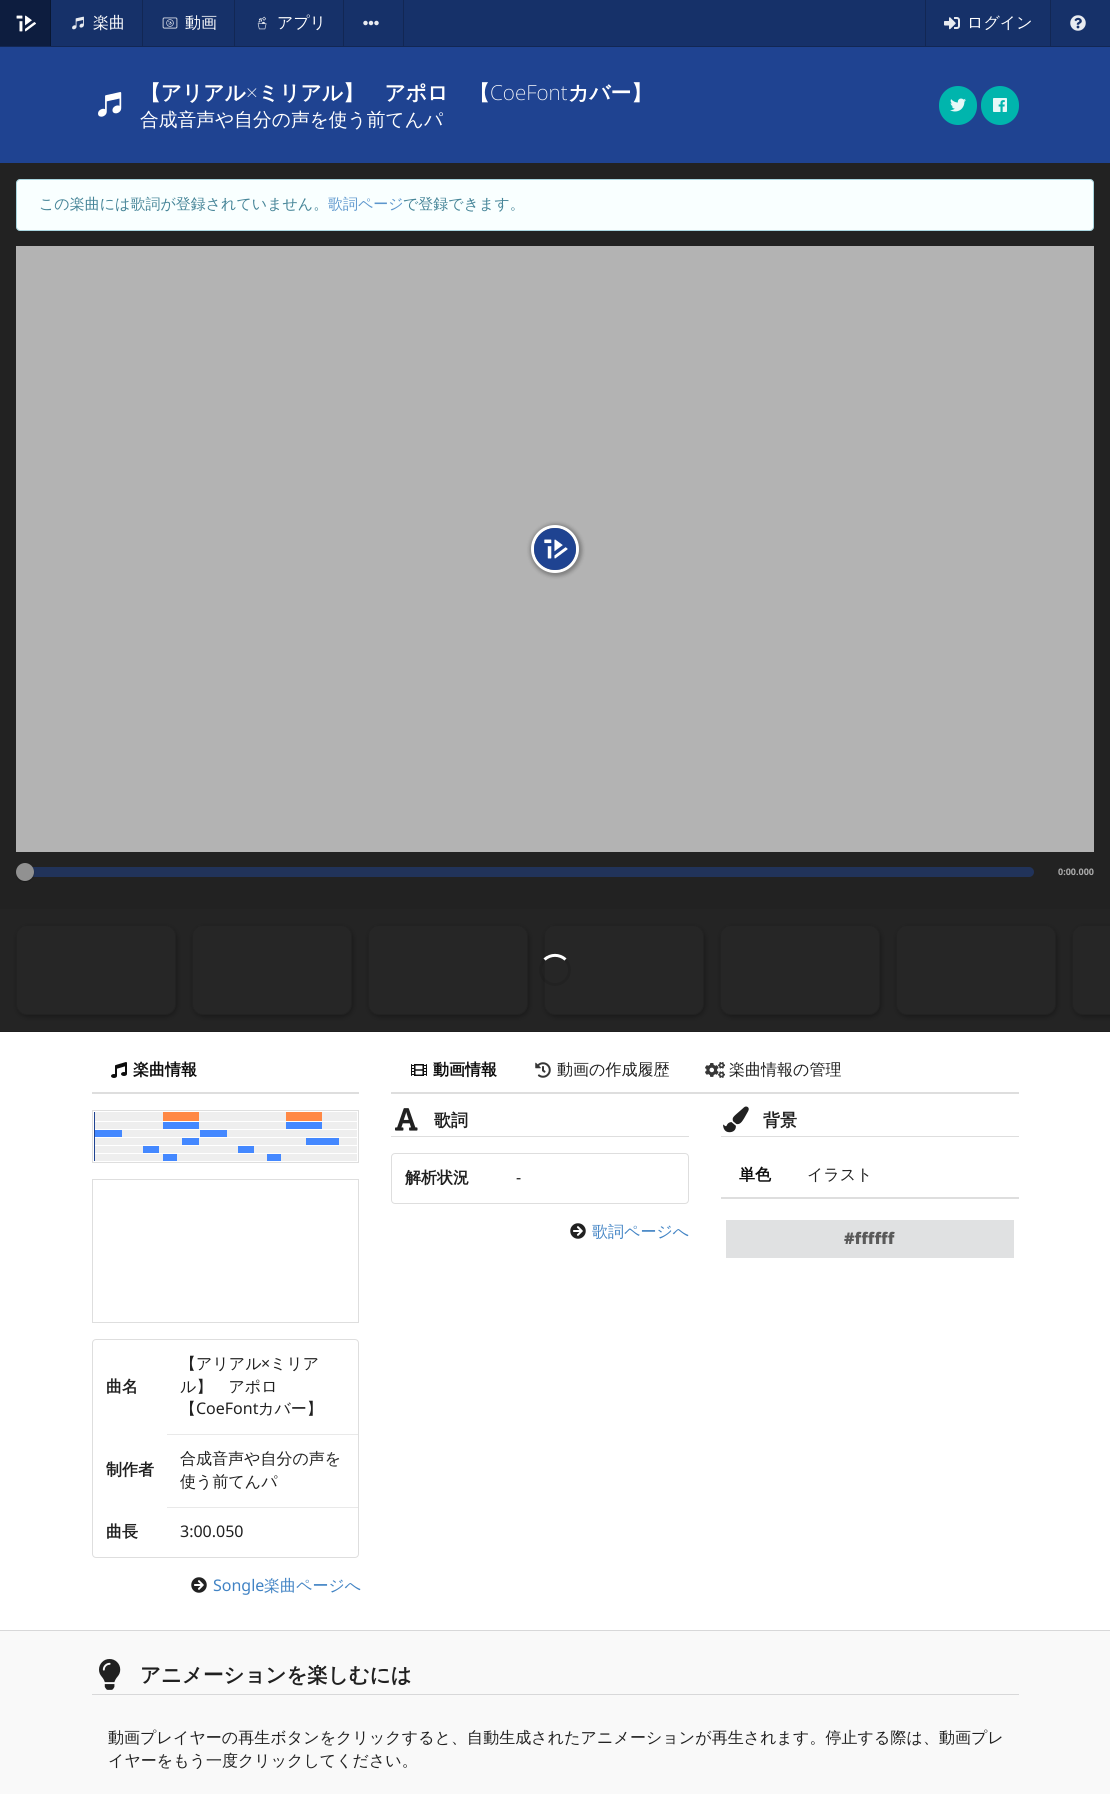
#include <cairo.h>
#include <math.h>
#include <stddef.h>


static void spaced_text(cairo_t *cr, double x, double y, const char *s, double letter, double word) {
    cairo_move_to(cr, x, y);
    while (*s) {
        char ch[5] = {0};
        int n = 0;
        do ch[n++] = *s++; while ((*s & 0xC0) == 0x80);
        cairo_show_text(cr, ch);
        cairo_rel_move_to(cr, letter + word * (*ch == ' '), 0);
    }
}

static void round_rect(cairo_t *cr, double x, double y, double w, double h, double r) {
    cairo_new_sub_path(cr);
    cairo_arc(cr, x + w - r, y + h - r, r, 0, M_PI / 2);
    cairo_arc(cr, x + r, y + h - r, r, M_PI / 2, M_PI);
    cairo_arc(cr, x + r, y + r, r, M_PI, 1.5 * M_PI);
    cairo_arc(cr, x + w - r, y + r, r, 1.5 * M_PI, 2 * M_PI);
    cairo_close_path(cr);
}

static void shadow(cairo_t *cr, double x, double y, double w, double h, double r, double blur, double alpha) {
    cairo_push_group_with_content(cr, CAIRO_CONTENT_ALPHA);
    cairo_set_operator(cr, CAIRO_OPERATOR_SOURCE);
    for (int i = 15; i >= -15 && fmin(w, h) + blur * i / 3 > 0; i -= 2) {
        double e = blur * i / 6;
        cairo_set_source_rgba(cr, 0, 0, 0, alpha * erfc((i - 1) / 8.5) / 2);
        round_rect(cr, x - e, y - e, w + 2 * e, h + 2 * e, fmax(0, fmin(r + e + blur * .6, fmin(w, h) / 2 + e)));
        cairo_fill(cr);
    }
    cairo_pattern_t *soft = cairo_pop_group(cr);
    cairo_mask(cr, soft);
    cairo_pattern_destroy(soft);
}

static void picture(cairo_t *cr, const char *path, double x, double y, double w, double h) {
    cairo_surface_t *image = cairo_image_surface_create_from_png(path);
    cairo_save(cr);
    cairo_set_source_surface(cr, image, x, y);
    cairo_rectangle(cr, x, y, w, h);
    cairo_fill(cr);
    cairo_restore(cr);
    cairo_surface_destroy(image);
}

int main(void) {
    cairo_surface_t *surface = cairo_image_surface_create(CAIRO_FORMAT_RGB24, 1110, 1794);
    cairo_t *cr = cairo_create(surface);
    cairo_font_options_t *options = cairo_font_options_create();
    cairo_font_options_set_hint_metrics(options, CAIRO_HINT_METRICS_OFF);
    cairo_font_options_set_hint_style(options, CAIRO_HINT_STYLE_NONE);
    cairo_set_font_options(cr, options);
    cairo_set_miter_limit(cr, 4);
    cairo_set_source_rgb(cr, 1, 1, 1);
    cairo_paint(cr);
    cairo_set_source_rgb(cr, 0.086, 0.192, 0.412);
    cairo_rectangle(cr, 51, 0, 1059, 46);
    cairo_fill(cr);
    cairo_set_source_rgb(cr, 0.071, 0.153, 0.329);
    cairo_rectangle(cr, 0, 46, 1110, 1);
    cairo_fill(cr);
    cairo_set_source_rgb(cr, 0.051, 0.114, 0.247);
    cairo_rectangle(cr, 0, 0, 50, 46);
    cairo_fill(cr);
    picture(cr, "img1.png", 16, 15, 20, 17);
    cairo_set_source_rgb(cr, 0.039, 0.09, 0.196);
    cairo_rectangle(cr, 50, 0, 1, 46);
    cairo_fill(cr);
    picture(cr, "img2.png", 72, 16, 12, 14);
    cairo_select_font_face(cr, "WenQuanYi Zen Hei Medium", CAIRO_FONT_SLANT_NORMAL, CAIRO_FONT_WEIGHT_NORMAL);
    cairo_set_font_size(cr, 16);
    cairo_set_source_rgb(cr, 1, 1, 1);
    cairo_move_to(cr, 93, 28);
    cairo_show_text(cr, "楽曲");
    cairo_set_source_rgb(cr, 0.071, 0.153, 0.329);
    cairo_rectangle(cr, 142, 0, 1, 46);
    cairo_fill(cr);
    picture(cr, "img3.png", 162, 17, 16, 12);
    cairo_set_source_rgb(cr, 1, 1, 1);
    cairo_move_to(cr, 185, 28);
    cairo_show_text(cr, "動画");
    cairo_set_source_rgb(cr, 0.071, 0.153, 0.329);
    cairo_rectangle(cr, 234, 0, 1, 46);
    cairo_fill(cr);
    picture(cr, "img4.png", 257, 16, 10, 14);
    cairo_set_source_rgb(cr, 1, 1, 1);
    cairo_move_to(cr, 277, 28);
    cairo_show_text(cr, "アプリ");
    cairo_set_source_rgb(cr, 0.071, 0.153, 0.329);
    cairo_rectangle(cr, 343, 0, 1, 46);
    cairo_fill(cr);
    picture(cr, "img5.png", 363, 20, 16, 6);
    cairo_rectangle(cr, 403, 0, 1, 46);
    cairo_fill(cr);
    cairo_rectangle(cr, 925, 0, 1, 46);
    cairo_fill(cr);
    picture(cr, "img6.png", 944, 17, 16, 13);
    cairo_set_source_rgb(cr, 1, 1, 1);
    cairo_move_to(cr, 967, 28);
    cairo_show_text(cr, "ログイン");
    cairo_set_source_rgb(cr, 0.071, 0.153, 0.329);
    cairo_rectangle(cr, 1050, 0, 1, 46);
    cairo_fill(cr);
    picture(cr, "img7.png", 1070, 15, 16, 16);
    cairo_set_source_rgb(cr, 0.122, 0.263, 0.569);
    cairo_rectangle(cr, 0, 47, 1110, 116);
    cairo_fill(cr);
    picture(cr, "img8.png", 98, 92, 24, 25);
    cairo_select_font_face(cr, "WenQuanYi Zen Hei", CAIRO_FONT_SLANT_NORMAL, CAIRO_FONT_WEIGHT_BOLD);
    cairo_set_font_size(cr, 20.75);
    cairo_set_source_rgb(cr, 1, 1, 1);
    cairo_move_to(cr, 140, 100);
    cairo_show_text(cr, "【アリアル");
    cairo_select_font_face(cr, "Noto Sans ExtraLight", CAIRO_FONT_SLANT_NORMAL, CAIRO_FONT_WEIGHT_NORMAL);
    cairo_move_to(cr, 246, 100);
    cairo_show_text(cr, "×");
    cairo_select_font_face(cr, "WenQuanYi Zen Hei", CAIRO_FONT_SLANT_NORMAL, CAIRO_FONT_WEIGHT_BOLD);
    cairo_move_to(cr, 258, 100);
    cairo_show_text(cr, "ミリアル】　アポロ　【");
    cairo_select_font_face(cr, "Noto Sans ExtraLight", CAIRO_FONT_SLANT_NORMAL, CAIRO_FONT_WEIGHT_NORMAL);
    cairo_move_to(cr, 490, 100);
    cairo_show_text(cr, "CoeFont");
    cairo_select_font_face(cr, "WenQuanYi Zen Hei", CAIRO_FONT_SLANT_NORMAL, CAIRO_FONT_WEIGHT_BOLD);
    cairo_move_to(cr, 568, 100);
    cairo_show_text(cr, "カバー】");
    cairo_select_font_face(cr, "WenQuanYi Zen Hei Medium", CAIRO_FONT_SLANT_NORMAL, CAIRO_FONT_WEIGHT_NORMAL);
    cairo_set_font_size(cr, 18.75);
    cairo_move_to(cr, 140, 126);
    cairo_show_text(cr, "合成音声や自分の声を使う前てんパ");
    cairo_set_source_rgb(cr, 0, 0.71, 0.678);
    round_rect(cr, 939, 86, 38, 39, 19);
    cairo_fill(cr);
    picture(cr, "img9.png", 950, 98, 16, 14);
    round_rect(cr, 981, 86, 38, 39, 19);
    cairo_fill(cr);
    picture(cr, "img10.png", 993, 98, 14, 14);
    cairo_set_source_rgb(cr, 0.133, 0.133, 0.133);
    cairo_rectangle(cr, 0, 163, 1110, 746);
    cairo_fill(cr);
    cairo_set_source_rgb(cr, 0.973, 1, 1);
    round_rect(cr, 16.5, 179.5, 1077, 51, 3.5);
    cairo_fill_preserve(cr);
    cairo_set_source_rgb(cr, 0.663, 0.835, 0.871);
    cairo_set_line_width(cr, 1);
    cairo_stroke(cr);
    cairo_set_font_size(cr, 15);
    cairo_set_source_rgb(cr, 0.275, 0.522, 0.596);
    cairo_move_to(cr, 39, 209);
    cairo_show_text(cr, "この楽曲には歌詞が登録されていません。");
    cairo_set_source_rgb(cr, 0.361, 0.588, 0.804);
    cairo_move_to(cr, 328, 209);
    cairo_show_text(cr, "歌詞ページ");
    cairo_set_source_rgb(cr, 0.275, 0.522, 0.596);
    cairo_move_to(cr, 403, 209);
    cairo_show_text(cr, "で登録できます。");
    cairo_set_source_rgb(cr, 0.702, 0.702, 0.702);
    cairo_rectangle(cr, 16, 246, 1078, 606);
    cairo_fill(cr);
    cairo_set_source_rgb(cr, 0, 0, 0);
    shadow(cr, 530, 524, 52, 52, 26, 2, 0.3);
    cairo_arc(cr, 555, 549, 22.5, 0, 2 * M_PI);
    cairo_set_source_rgb(cr, 1, 1, 1);
    cairo_set_line_width(cr, 3);
    cairo_stroke(cr);
    picture(cr, "img11.png", 534, 528, 42, 42);
    cairo_set_source_rgb(cr, 0.129, 0.2, 0.353);
    round_rect(cr, 25, 867, 1009, 10, 5);
    cairo_fill(cr);
    cairo_set_source_rgb(cr, 0.067, 0.067, 0.067);
    shadow(cr, 16, 864, 18, 18, 9, 0.5, 0.5);
    cairo_set_source_rgb(cr, 0.569, 0.569, 0.569);
    cairo_arc(cr, 25, 872, 9, 0, 2 * M_PI);
    cairo_fill(cr);
    cairo_select_font_face(cr, "Noto Sans", CAIRO_FONT_SLANT_NORMAL, CAIRO_FONT_WEIGHT_BOLD);
    cairo_set_font_size(cr, 9);
    cairo_set_source_rgb(cr, 0.667, 0.667, 0.667);
    cairo_move_to(cr, 1058, 875);
    cairo_show_text(cr, "0:00.000");
    cairo_set_source_rgb(cr, 0.141, 0.141, 0.141);
    cairo_rectangle(cr, 0, 909, 1110, 122);
    cairo_fill(cr);
    cairo_set_source_rgb(cr, 0.122, 0.122, 0.122);
    cairo_rectangle(cr, 0, 1031, 1110, 1);
    cairo_fill(cr);
    cairo_set_source_rgb(cr, 0, 0, 0);
    shadow(cr, 17, 927, 160, 90, 11, 2.5, 0.3);
    cairo_set_source_rgb(cr, 0.149, 0.149, 0.149);
    round_rect(cr, 16, 925, 160, 90, 11);
    cairo_fill(cr);
    round_rect(cr, 16.5, 925.5, 159, 89, 10.5);
    cairo_set_source_rgba(cr, 0, 0, 0, 0.1);
    cairo_set_line_width(cr, 1);
    cairo_stroke(cr);
    cairo_set_source_rgb(cr, 0, 0, 0);
    shadow(cr, 193, 927, 160, 90, 11, 2.5, 0.3);
    cairo_set_source_rgb(cr, 0.149, 0.149, 0.149);
    round_rect(cr, 192, 925, 160, 90, 11);
    cairo_fill(cr);
    round_rect(cr, 192.5, 925.5, 159, 89, 10.5);
    cairo_set_source_rgba(cr, 0, 0, 0, 0.1);
    cairo_stroke(cr);
    cairo_set_source_rgb(cr, 0, 0, 0);
    shadow(cr, 369, 927, 160, 90, 11, 2.5, 0.3);
    cairo_set_source_rgb(cr, 0.149, 0.149, 0.149);
    round_rect(cr, 368, 925, 160, 90, 11);
    cairo_fill(cr);
    round_rect(cr, 368.5, 925.5, 159, 89, 10.5);
    cairo_set_source_rgba(cr, 0, 0, 0, 0.1);
    cairo_stroke(cr);
    cairo_set_source_rgb(cr, 0, 0, 0);
    shadow(cr, 545, 927, 160, 90, 11, 2.5, 0.3);
    cairo_set_source_rgb(cr, 0.149, 0.149, 0.149);
    round_rect(cr, 544, 925, 160, 90, 11);
    cairo_fill(cr);
    round_rect(cr, 544.5, 925.5, 159, 89, 10.5);
    cairo_set_source_rgba(cr, 0, 0, 0, 0.1);
    cairo_stroke(cr);
    cairo_set_source_rgb(cr, 0, 0, 0);
    shadow(cr, 721, 927, 160, 90, 11, 2.5, 0.3);
    cairo_set_source_rgb(cr, 0.149, 0.149, 0.149);
    round_rect(cr, 720, 925, 160, 90, 11);
    cairo_fill(cr);
    round_rect(cr, 720.5, 925.5, 159, 89, 10.5);
    cairo_set_source_rgba(cr, 0, 0, 0, 0.1);
    cairo_stroke(cr);
    cairo_set_source_rgb(cr, 0, 0, 0);
    shadow(cr, 897, 927, 160, 90, 11, 2.5, 0.3);
    cairo_set_source_rgb(cr, 0.149, 0.149, 0.149);
    round_rect(cr, 896, 925, 160, 90, 11);
    cairo_fill(cr);
    round_rect(cr, 896.5, 925.5, 159, 89, 10.5);
    cairo_set_source_rgba(cr, 0, 0, 0, 0.1);
    cairo_stroke(cr);
    cairo_set_source_rgb(cr, 0, 0, 0);
    shadow(cr, 1073, 927, 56, 90, 11, 2.5, 0.3);
    cairo_set_source_rgb(cr, 0.149, 0.149, 0.149);
    cairo_new_path(cr);
    cairo_move_to(cr, 1083, 925);
    cairo_line_to(cr, 1110, 925);
    cairo_line_to(cr, 1110, 1015);
    cairo_line_to(cr, 1083, 1015);
    cairo_curve_to(cr, 1077, 1015, 1072, 1010, 1072, 1004);
    cairo_line_to(cr, 1072, 936);
    cairo_curve_to(cr, 1072, 930, 1077, 925, 1083, 925);
    cairo_close_path(cr);
    cairo_fill(cr);
    round_rect(cr, 1072.5, 925.5, 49, 89, 10.5);
    cairo_set_source_rgba(cr, 0, 0, 0, 0.1);
    cairo_stroke(cr);
    cairo_arc(cr, 555, 970, 14.5, 0, 2 * M_PI);
    cairo_set_line_width(cr, 3);
    cairo_stroke(cr);
    cairo_new_path(cr);
    cairo_move_to(cr, 544.5, 959.5);
    cairo_curve_to(cr, 550.5, 954, 559.5, 954, 565.5, 959.5);
    cairo_set_source_rgb(cr, 1, 1, 1);
    cairo_stroke(cr);
    cairo_set_source_rgb(cr, 0.871, 0.871, 0.871);
    cairo_rectangle(cr, 92, 1092, 267, 2);
    cairo_fill(cr);
    picture(cr, "img12.png", 111, 1062, 16, 16);
    cairo_select_font_face(cr, "WenQuanYi Zen Hei", CAIRO_FONT_SLANT_NORMAL, CAIRO_FONT_WEIGHT_BOLD);
    cairo_set_font_size(cr, 16);
    cairo_set_source_rgb(cr, 0.051, 0.051, 0.051);
    cairo_move_to(cr, 133, 1075);
    cairo_show_text(cr, "楽曲情報");
    cairo_rectangle(cr, 92.5, 1110.5, 266, 52);
    cairo_set_source_rgb(cr, 0.871, 0.871, 0.871);
    cairo_set_line_width(cr, 1);
    cairo_stroke(cr);
    cairo_set_source_rgb(cr, 0.933, 0.933, 0.933);
    cairo_rectangle(cr, 94, 1122, 263, 7);
    cairo_fill(cr);
    cairo_rectangle(cr, 94, 1138, 263, 7);
    cairo_fill(cr);
    cairo_rectangle(cr, 94, 1146, 263, 7);
    cairo_fill(cr);
    cairo_rectangle(cr, 94, 1154, 263, 7);
    cairo_fill(cr);
    cairo_set_source_rgb(cr, 0.122, 0.263, 0.569);
    cairo_rectangle(cr, 94, 1112, 1, 49);
    cairo_fill(cr);
    cairo_set_source_rgb(cr, 0.933, 0.933, 0.933);
    cairo_rectangle(cr, 95, 1112, 262, 9);
    cairo_fill(cr);
    cairo_set_source_rgb(cr, 1, 0.533, 0.267);
    cairo_rectangle(cr, 163, 1112, 36, 9);
    cairo_fill(cr);
    cairo_rectangle(cr, 286, 1112, 36, 9);
    cairo_fill(cr);
    cairo_set_source_rgb(cr, 0.267, 0.533, 1);
    cairo_rectangle(cr, 163, 1122, 36, 7);
    cairo_fill(cr);
    cairo_rectangle(cr, 286, 1122, 36, 7);
    cairo_fill(cr);
    cairo_set_source_rgb(cr, 0.933, 0.933, 0.933);
    cairo_rectangle(cr, 122, 1130, 235, 7);
    cairo_fill(cr);
    cairo_set_source_rgb(cr, 0.267, 0.533, 1);
    cairo_rectangle(cr, 95, 1130, 27, 7);
    cairo_fill(cr);
    cairo_rectangle(cr, 200, 1130, 27, 7);
    cairo_fill(cr);
    cairo_rectangle(cr, 182, 1138, 17, 7);
    cairo_fill(cr);
    cairo_rectangle(cr, 306, 1138, 33, 7);
    cairo_fill(cr);
    cairo_rectangle(cr, 143, 1146, 16, 7);
    cairo_fill(cr);
    cairo_rectangle(cr, 238, 1146, 16, 7);
    cairo_fill(cr);
    cairo_rectangle(cr, 163, 1154, 14, 7);
    cairo_fill(cr);
    cairo_rectangle(cr, 267, 1154, 14, 7);
    cairo_fill(cr);
    cairo_rectangle(cr, 92.5, 1179.5, 266, 143);
    cairo_set_source_rgb(cr, 0.871, 0.871, 0.871);
    cairo_stroke(cr);
    round_rect(cr, 92.5, 1339.5, 266, 218, 3.5);
    cairo_stroke(cr);
    cairo_set_source_rgb(cr, 0.125, 0.125, 0.125);
    cairo_move_to(cr, 106, 1392);
    cairo_show_text(cr, "曲名");
    cairo_select_font_face(cr, "WenQuanYi Zen Hei Medium", CAIRO_FONT_SLANT_NORMAL, CAIRO_FONT_WEIGHT_NORMAL);
    cairo_move_to(cr, 180, 1369);
    cairo_show_text(cr, "【アリアル");
    cairo_select_font_face(cr, "Noto Sans", CAIRO_FONT_SLANT_NORMAL, CAIRO_FONT_WEIGHT_NORMAL);
    cairo_move_to(cr, 261, 1369);
    cairo_show_text(cr, "×");
    cairo_select_font_face(cr, "WenQuanYi Zen Hei Medium", CAIRO_FONT_SLANT_NORMAL, CAIRO_FONT_WEIGHT_NORMAL);
    cairo_move_to(cr, 270, 1369);
    cairo_show_text(cr, "ミリア");
    cairo_move_to(cr, 180, 1392);
    cairo_show_text(cr, "ル】　アポロ");
    cairo_move_to(cr, 180, 1414);
    cairo_show_text(cr, "【");
    cairo_select_font_face(cr, "Noto Sans", CAIRO_FONT_SLANT_NORMAL, CAIRO_FONT_WEIGHT_NORMAL);
    cairo_move_to(cr, 196, 1414);
    cairo_show_text(cr, "CoeFont");
    cairo_select_font_face(cr, "WenQuanYi Zen Hei Medium", CAIRO_FONT_SLANT_NORMAL, CAIRO_FONT_WEIGHT_NORMAL);
    cairo_move_to(cr, 258, 1414);
    cairo_show_text(cr, "カバー】");
    cairo_select_font_face(cr, "WenQuanYi Zen Hei", CAIRO_FONT_SLANT_NORMAL, CAIRO_FONT_WEIGHT_BOLD);
    cairo_move_to(cr, 106, 1475);
    cairo_show_text(cr, "制作者");
    cairo_set_source_rgb(cr, 0.914, 0.914, 0.914);
    cairo_rectangle(cr, 167, 1434, 191, 1);
    cairo_fill(cr);
    cairo_select_font_face(cr, "WenQuanYi Zen Hei Medium", CAIRO_FONT_SLANT_NORMAL, CAIRO_FONT_WEIGHT_NORMAL);
    cairo_set_source_rgb(cr, 0.125, 0.125, 0.125);
    cairo_move_to(cr, 180, 1464);
    cairo_show_text(cr, "合成音声や自分の声を");
    cairo_move_to(cr, 180, 1487);
    cairo_show_text(cr, "使う前てんパ");
    cairo_select_font_face(cr, "WenQuanYi Zen Hei", CAIRO_FONT_SLANT_NORMAL, CAIRO_FONT_WEIGHT_BOLD);
    cairo_move_to(cr, 106, 1537);
    cairo_show_text(cr, "曲長");
    cairo_set_source_rgb(cr, 0.914, 0.914, 0.914);
    cairo_rectangle(cr, 167, 1507, 191, 1);
    cairo_fill(cr);
    cairo_select_font_face(cr, "Noto Sans", CAIRO_FONT_SLANT_NORMAL, CAIRO_FONT_WEIGHT_NORMAL);
    cairo_set_source_rgb(cr, 0.125, 0.125, 0.125);
    cairo_move_to(cr, 180, 1537);
    cairo_show_text(cr, "3:00.050");
    picture(cr, "img13.png", 191, 1577, 16, 16);
    cairo_set_source_rgb(cr, 0.255, 0.514, 0.769);
    cairo_move_to(cr, 213, 1591);
    cairo_show_text(cr, "Songle");
    cairo_select_font_face(cr, "WenQuanYi Zen Hei Medium", CAIRO_FONT_SLANT_NORMAL, CAIRO_FONT_WEIGHT_NORMAL);
    cairo_move_to(cr, 264, 1591);
    cairo_show_text(cr, "楽曲ページへ");
    cairo_set_source_rgb(cr, 0.871, 0.871, 0.871);
    cairo_rectangle(cr, 391, 1092, 628, 2);
    cairo_fill(cr);
    picture(cr, "img14.png", 411, 1064, 16, 12);
    cairo_select_font_face(cr, "WenQuanYi Zen Hei", CAIRO_FONT_SLANT_NORMAL, CAIRO_FONT_WEIGHT_BOLD);
    cairo_set_source_rgb(cr, 0.051, 0.051, 0.051);
    cairo_move_to(cr, 433, 1075);
    cairo_show_text(cr, "動画情報");
    picture(cr, "img15.png", 535, 1062, 16, 16);
    cairo_select_font_face(cr, "WenQuanYi Zen Hei Medium", CAIRO_FONT_SLANT_NORMAL, CAIRO_FONT_WEIGHT_NORMAL);
    cairo_set_source_rgb(cr, 0.125, 0.125, 0.125);
    cairo_move_to(cr, 557, 1075);
    cairo_show_text(cr, "動画の作成履歴");
    picture(cr, "img16.png", 705, 1062, 20, 16);
    cairo_move_to(cr, 729, 1075);
    cairo_show_text(cr, "楽曲情報の管理");
    cairo_set_source_rgb(cr, 0.871, 0.871, 0.871);
    cairo_rectangle(cr, 391, 1136, 298, 1);
    cairo_fill(cr);
    picture(cr, "img17.png", 395, 1108, 23, 23);
    cairo_select_font_face(cr, "WenQuanYi Zen Hei", CAIRO_FONT_SLANT_NORMAL, CAIRO_FONT_WEIGHT_BOLD);
    cairo_set_font_size(cr, 17);
    cairo_set_source_rgb(cr, 0.125, 0.125, 0.125);
    cairo_move_to(cr, 434, 1126);
    cairo_show_text(cr, "歌詞");
    round_rect(cr, 391.5, 1153.5, 297, 50, 3.5);
    cairo_set_source_rgb(cr, 0.871, 0.871, 0.871);
    cairo_stroke(cr);
    cairo_set_font_size(cr, 16);
    cairo_set_source_rgb(cr, 0.125, 0.125, 0.125);
    cairo_move_to(cr, 405, 1183);
    cairo_show_text(cr, "解析状況");
    cairo_select_font_face(cr, "Noto Sans", CAIRO_FONT_SLANT_NORMAL, CAIRO_FONT_WEIGHT_NORMAL);
    cairo_move_to(cr, 516, 1183);
    cairo_show_text(cr, "-");
    picture(cr, "img13.png", 570, 1223, 16, 16);
    cairo_select_font_face(cr, "WenQuanYi Zen Hei Medium", CAIRO_FONT_SLANT_NORMAL, CAIRO_FONT_WEIGHT_NORMAL);
    cairo_set_source_rgb(cr, 0.255, 0.514, 0.769);
    cairo_move_to(cr, 592, 1237);
    cairo_show_text(cr, "歌詞ページへ");
    cairo_set_source_rgb(cr, 0.871, 0.871, 0.871);
    cairo_rectangle(cr, 721, 1136, 298, 1);
    cairo_fill(cr);
    picture(cr, "img18.png", 723, 1106, 26, 27);
    cairo_select_font_face(cr, "WenQuanYi Zen Hei", CAIRO_FONT_SLANT_NORMAL, CAIRO_FONT_WEIGHT_BOLD);
    cairo_set_font_size(cr, 17);
    cairo_set_source_rgb(cr, 0.125, 0.125, 0.125);
    cairo_move_to(cr, 763, 1126);
    cairo_show_text(cr, "背景");
    cairo_set_source_rgb(cr, 0.871, 0.871, 0.871);
    cairo_rectangle(cr, 721, 1197, 298, 2);
    cairo_fill(cr);
    cairo_set_font_size(cr, 16);
    cairo_set_source_rgb(cr, 0.051, 0.051, 0.051);
    cairo_move_to(cr, 739, 1180);
    cairo_show_text(cr, "単色");
    cairo_select_font_face(cr, "WenQuanYi Zen Hei Medium", CAIRO_FONT_SLANT_NORMAL, CAIRO_FONT_WEIGHT_NORMAL);
    cairo_set_source_rgb(cr, 0.125, 0.125, 0.125);
    cairo_move_to(cr, 807, 1180);
    cairo_show_text(cr, "イラスト");
    cairo_set_source_rgb(cr, 0.878, 0.882, 0.886);
    round_rect(cr, 723.5, 1217.5, 293, 43, 1.5);
    cairo_fill_preserve(cr);
    cairo_set_source_rgb(cr, 1, 1, 1);
    cairo_set_line_width(cr, 5);
    cairo_stroke(cr);
    cairo_select_font_face(cr, "Noto Sans Black", CAIRO_FONT_SLANT_NORMAL, CAIRO_FONT_WEIGHT_NORMAL);
    cairo_set_source_rgb(cr, 0.353, 0.353, 0.353);
    cairo_move_to(cr, 844, 1244);
    cairo_show_text(cr, "#ffffff");
    cairo_set_source_rgb(cr, 0.973, 0.973, 0.973);
    cairo_rectangle(cr, 0, 1631, 1110, 163);
    cairo_fill(cr);
    cairo_set_source_rgb(cr, 0.847, 0.847, 0.851);
    cairo_rectangle(cr, 0, 1630, 1110, 1);
    cairo_fill(cr);
    cairo_rectangle(cr, 92, 1694, 927, 1);
    cairo_fill(cr);
    picture(cr, "img19.png", 99, 1659, 22, 31);
    cairo_select_font_face(cr, "WenQuanYi Zen Hei", CAIRO_FONT_SLANT_NORMAL, CAIRO_FONT_WEIGHT_BOLD);
    cairo_set_font_size(cr, 20.5);
    cairo_set_source_rgb(cr, 0.125, 0.125, 0.125);
    cairo_move_to(cr, 140, 1682);
    cairo_show_text(cr, "アニメーションを楽しむには");
    cairo_select_font_face(cr, "WenQuanYi Zen Hei Medium", CAIRO_FONT_SLANT_NORMAL, CAIRO_FONT_WEIGHT_NORMAL);
    cairo_set_font_size(cr, 16);
    spaced_text(cr, 108, 1743, "動画プレイヤーの再生ボタンをクリックすると、自動生成されたアニメーションが再生されます。停止する際は、動画プレ", 0.05, 0);
    cairo_move_to(cr, 108, 1766);
    cairo_show_text(cr, "イヤーをもう一度クリックしてください。");
    cairo_surface_write_to_png(surface, "page.png");
    cairo_font_options_destroy(options);
    cairo_destroy(cr);
    cairo_surface_destroy(surface);
    return 0;
}
